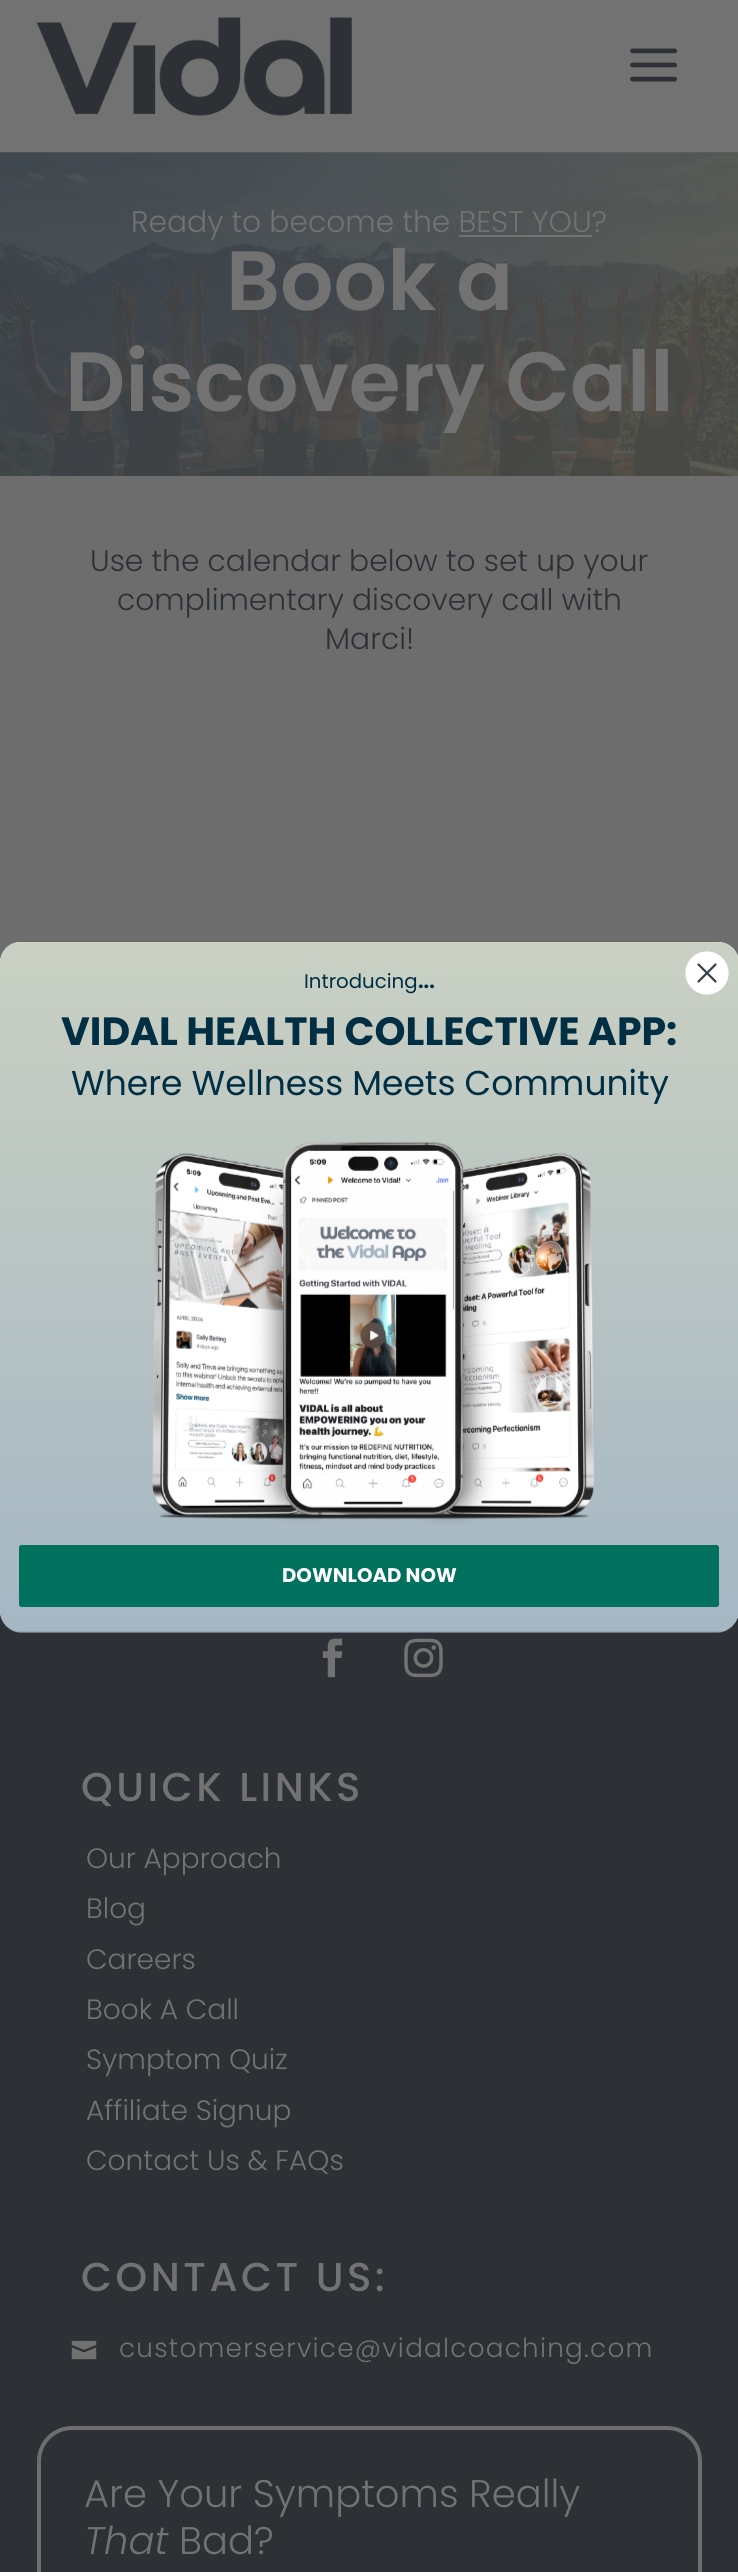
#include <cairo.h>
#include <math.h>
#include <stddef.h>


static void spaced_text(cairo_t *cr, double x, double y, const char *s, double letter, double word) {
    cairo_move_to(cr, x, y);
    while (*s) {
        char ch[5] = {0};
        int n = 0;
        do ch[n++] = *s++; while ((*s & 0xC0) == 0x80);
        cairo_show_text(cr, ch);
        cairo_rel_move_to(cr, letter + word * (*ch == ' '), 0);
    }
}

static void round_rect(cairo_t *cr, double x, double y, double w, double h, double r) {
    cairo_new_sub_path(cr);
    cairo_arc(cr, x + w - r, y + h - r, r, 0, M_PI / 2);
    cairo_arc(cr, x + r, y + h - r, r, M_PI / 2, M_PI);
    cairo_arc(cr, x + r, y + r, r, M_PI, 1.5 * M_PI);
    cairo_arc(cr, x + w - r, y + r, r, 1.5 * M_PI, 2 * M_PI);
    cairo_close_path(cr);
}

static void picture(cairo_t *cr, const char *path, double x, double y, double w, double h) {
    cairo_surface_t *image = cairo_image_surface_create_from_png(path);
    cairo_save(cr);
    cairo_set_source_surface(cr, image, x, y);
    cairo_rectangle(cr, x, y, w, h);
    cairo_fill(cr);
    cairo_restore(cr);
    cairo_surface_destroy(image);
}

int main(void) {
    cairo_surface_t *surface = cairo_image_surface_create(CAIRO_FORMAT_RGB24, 738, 2572);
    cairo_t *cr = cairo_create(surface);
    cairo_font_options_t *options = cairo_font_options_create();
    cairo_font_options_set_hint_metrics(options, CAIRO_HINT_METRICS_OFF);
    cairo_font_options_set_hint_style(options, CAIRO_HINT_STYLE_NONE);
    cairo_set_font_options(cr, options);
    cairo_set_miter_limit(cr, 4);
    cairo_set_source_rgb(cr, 0.447, 0.447, 0.447);
    cairo_paint(cr);
    picture(cr, "img1.png", 36, 17, 316, 99);
    picture(cr, "img2.png", 630, 48, 48, 34);
    picture(cr, "img3.png", 0, 152, 738, 324);
    cairo_select_font_face(cr, "Poppins Light", CAIRO_FONT_SLANT_NORMAL, CAIRO_FONT_WEIGHT_NORMAL);
    cairo_set_font_size(cr, 29.75);
    cairo_set_source_rgb(cr, 0.447, 0.447, 0.447);
    cairo_move_to(cr, 131, 232);
    cairo_show_text(cr, "Ready to become the BEST YOU?");
    cairo_rectangle(cr, 459, 235, 133, 2);
    cairo_fill(cr);
    cairo_select_font_face(cr, "Poppins SemiBold", CAIRO_FONT_SLANT_NORMAL, CAIRO_FONT_WEIGHT_NORMAL);
    cairo_set_font_size(cr, 84);
    cairo_move_to(cr, 226, 310);
    cairo_show_text(cr, "Book a");
    cairo_move_to(cr, 65, 411);
    cairo_show_text(cr, "Discovery Call");
    cairo_set_source_rgb(cr, 0.427, 0.427, 0.427);
    cairo_rectangle(cr, 0, 476, 738, 487);
    cairo_fill(cr);
    cairo_select_font_face(cr, "Poppins Light", CAIRO_FONT_SLANT_NORMAL, CAIRO_FONT_WEIGHT_NORMAL);
    cairo_set_font_size(cr, 29.75);
    cairo_set_source_rgb(cr, 0.176, 0.192, 0.208);
    cairo_move_to(cr, 90, 571);
    cairo_show_text(cr, "Use the calendar below to set up your");
    cairo_move_to(cr, 117, 610);
    cairo_show_text(cr, "complimentary discovery call with");
    cairo_move_to(cr, 325, 649);
    cairo_show_text(cr, "Marci!");
    cairo_rectangle(cr, 0, 1611, 738, 961);
    cairo_fill(cr);
    picture(cr, "img4.png", 322, 1638, 21, 40);
    picture(cr, "img5.png", 404, 1638, 39, 40);
    cairo_select_font_face(cr, "Poppins Medium", CAIRO_FONT_SLANT_NORMAL, CAIRO_FONT_WEIGHT_NORMAL);
    cairo_set_font_size(cr, 40.25);
    cairo_set_source_rgb(cr, 0.447, 0.447, 0.447);
    spaced_text(cr, 81, 1801, "QUICK LINKS", 3.5, 0);
    cairo_select_font_face(cr, "Poppins Light", CAIRO_FONT_SLANT_NORMAL, CAIRO_FONT_WEIGHT_NORMAL);
    cairo_set_font_size(cr, 28);
    cairo_move_to(cr, 86, 1868);
    cairo_show_text(cr, "Our Approach");
    cairo_move_to(cr, 86, 1918);
    cairo_show_text(cr, "Blog");
    cairo_move_to(cr, 86, 1969);
    cairo_show_text(cr, "Careers");
    cairo_move_to(cr, 86, 2019);
    cairo_show_text(cr, "Book A Call");
    cairo_move_to(cr, 86, 2069);
    cairo_show_text(cr, "Symptom Quiz");
    cairo_move_to(cr, 86, 2120);
    cairo_show_text(cr, "Affiliate Signup");
    cairo_move_to(cr, 86, 2170);
    cairo_show_text(cr, "Contact Us & FAQs");
    cairo_select_font_face(cr, "Poppins Medium", CAIRO_FONT_SLANT_NORMAL, CAIRO_FONT_WEIGHT_NORMAL);
    cairo_set_font_size(cr, 40.25);
    spaced_text(cr, 81, 2291, "CONTACT US:", 3.5, 0);
    picture(cr, "img6.png", 71, 2340, 26, 20);
    cairo_select_font_face(cr, "Poppins Light", CAIRO_FONT_SLANT_NORMAL, CAIRO_FONT_WEIGHT_NORMAL);
    cairo_set_font_size(cr, 26.25);
    spaced_text(cr, 119, 2357, "customerservice@vidalcoaching.com", 1.25, 0);
    round_rect(cr, 39, 2428, 661, 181, 33);
    cairo_set_source_rgb(cr, 0.427, 0.427, 0.427);
    cairo_set_line_width(cr, 4);
    cairo_stroke(cr);
    cairo_set_font_size(cr, 38.5);
    cairo_set_source_rgb(cr, 0.447, 0.447, 0.447);
    cairo_move_to(cr, 84, 2507);
    cairo_show_text(cr, "Are Your Symptoms Really");
    cairo_select_font_face(cr, "Poppins Light", CAIRO_FONT_SLANT_ITALIC, CAIRO_FONT_WEIGHT_NORMAL);
    cairo_move_to(cr, 84, 2554);
    cairo_show_text(cr, "That");
    cairo_select_font_face(cr, "Poppins Light", CAIRO_FONT_SLANT_NORMAL, CAIRO_FONT_WEIGHT_NORMAL);
    cairo_move_to(cr, 179, 2554);
    cairo_show_text(cr, "Bad?");
    cairo_set_source_rgb(cr, 1, 1, 1);
    round_rect(cr, 0, 942, 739, 689, 21);
    cairo_fill(cr);
    picture(cr, "img7.png", 0, 942, 738, 691);
    cairo_select_font_face(cr, "Poppins", CAIRO_FONT_SLANT_NORMAL, CAIRO_FONT_WEIGHT_NORMAL);
    cairo_set_font_size(cr, 19.75);
    cairo_set_source_rgb(cr, 0, 0.184, 0.267);
    cairo_move_to(cr, 304, 988);
    cairo_show_text(cr, "Introducing");
    cairo_select_font_face(cr, "Poppins", CAIRO_FONT_SLANT_NORMAL, CAIRO_FONT_WEIGHT_BOLD);
    cairo_move_to(cr, 418, 988);
    cairo_show_text(cr, "...");
    cairo_set_font_size(cr, 39.4);
    cairo_move_to(cr, 61, 1045);
    cairo_show_text(cr, "VIDAL HEALTH COLLECTIVE APP:");
    cairo_select_font_face(cr, "Poppins", CAIRO_FONT_SLANT_NORMAL, CAIRO_FONT_WEIGHT_NORMAL);
    cairo_set_font_size(cr, 34.5);
    cairo_move_to(cr, 71, 1095);
    cairo_show_text(cr, "Where Wellness Meets Community");
    picture(cr, "img8.png", 152, 1141, 443, 385);
    cairo_set_source_rgb(cr, 0.004, 0.443, 0.365);
    round_rect(cr, 19, 1545, 700, 62, 2.5);
    cairo_fill(cr);
    cairo_select_font_face(cr, "Poppins", CAIRO_FONT_SLANT_NORMAL, CAIRO_FONT_WEIGHT_BOLD);
    cairo_set_font_size(cr, 19.75);
    cairo_set_source_rgb(cr, 1, 1, 1);
    cairo_move_to(cr, 282, 1582);
    cairo_show_text(cr, "DOWNLOAD NOW");
    cairo_new_path(cr);
    cairo_arc(cr, 707, 973, 20.5, 0, 2 * M_PI);
    cairo_fill_preserve(cr);
    cairo_set_line_width(cr, 2.2);
    cairo_stroke(cr);
    cairo_new_path(cr);
    cairo_move_to(cr, 698.5, 964.5);
    cairo_line_to(cr, 715.5, 981.5);
    cairo_move_to(cr, 698.5, 981.5);
    cairo_line_to(cr, 715.5, 964.5);
    cairo_close_path(cr);
    cairo_set_source_rgb(cr, 0.216, 0.247, 0.278);
    cairo_set_line_cap(cr, CAIRO_LINE_CAP_ROUND);
    cairo_set_line_join(cr, CAIRO_LINE_JOIN_ROUND);
    cairo_stroke(cr);
    cairo_surface_write_to_png(surface, "page.png");
    cairo_font_options_destroy(options);
    cairo_destroy(cr);
    cairo_surface_destroy(surface);
    return 0;
}
